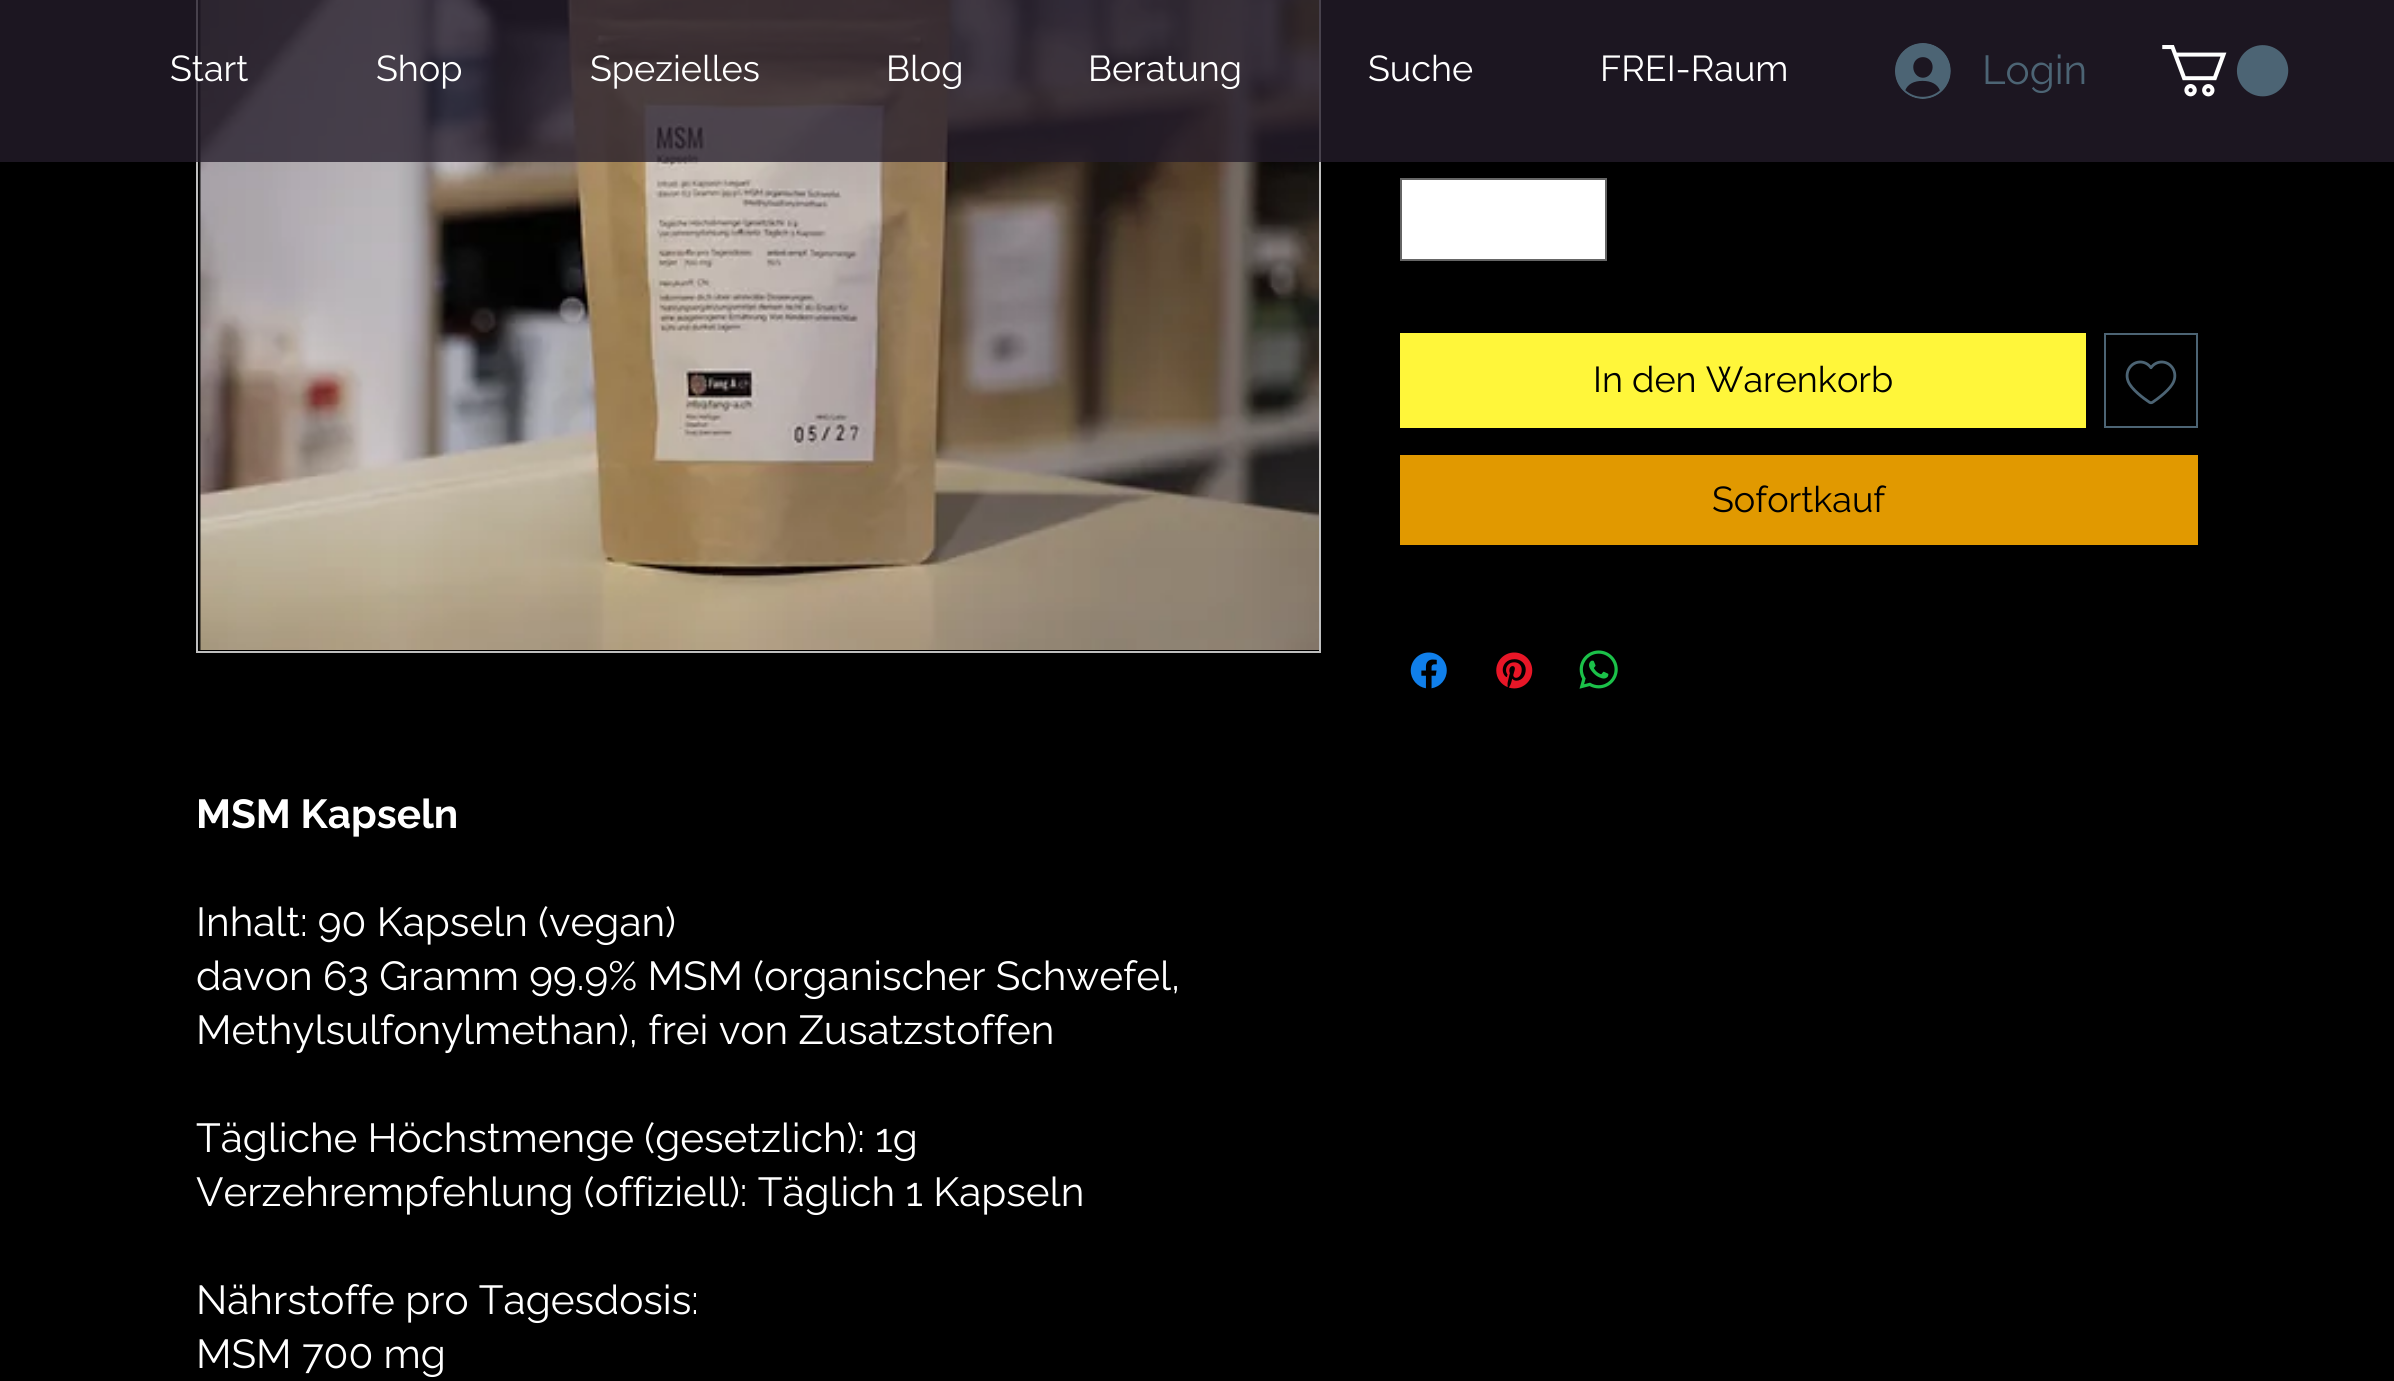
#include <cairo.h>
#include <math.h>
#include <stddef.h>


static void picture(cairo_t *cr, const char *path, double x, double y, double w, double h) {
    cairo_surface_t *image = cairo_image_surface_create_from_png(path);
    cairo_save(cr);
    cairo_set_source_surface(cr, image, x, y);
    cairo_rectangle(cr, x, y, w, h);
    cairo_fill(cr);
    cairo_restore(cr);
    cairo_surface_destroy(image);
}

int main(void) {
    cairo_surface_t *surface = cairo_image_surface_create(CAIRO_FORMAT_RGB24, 2394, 1381);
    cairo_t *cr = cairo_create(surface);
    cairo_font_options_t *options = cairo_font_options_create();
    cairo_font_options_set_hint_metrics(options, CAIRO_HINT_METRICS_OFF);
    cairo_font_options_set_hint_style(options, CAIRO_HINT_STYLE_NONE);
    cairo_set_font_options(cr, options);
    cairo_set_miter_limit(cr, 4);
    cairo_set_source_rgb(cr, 0, 0, 0);
    cairo_paint(cr);
    cairo_rectangle(cr, 197, -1, 1123, 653);
    cairo_set_source_rgb(cr, 0.749, 0.749, 0.749);
    cairo_stroke(cr);
    picture(cr, "img7.png", 199, 0, 1120, 650);
    cairo_set_source_rgba(cr, 0.145, 0.114, 0.169, 0.77);
    cairo_rectangle(cr, 0, 0, 2394, 162);
    cairo_fill(cr);
    cairo_select_font_face(cr, "Raleway", CAIRO_FONT_SLANT_NORMAL, CAIRO_FONT_WEIGHT_NORMAL);
    cairo_set_font_size(cr, 36);
    cairo_set_source_rgb(cr, 1, 1, 1);
    cairo_move_to(cr, 170, 81);
    cairo_show_text(cr, "Start");
    cairo_move_to(cr, 376, 81);
    cairo_show_text(cr, "Shop");
    cairo_move_to(cr, 590, 81);
    cairo_show_text(cr, "Spezielles");
    cairo_move_to(cr, 886, 81);
    cairo_show_text(cr, "Blog");
    cairo_move_to(cr, 1088, 81);
    cairo_show_text(cr, "Beratung");
    cairo_move_to(cr, 1368, 81);
    cairo_show_text(cr, "Suche");
    cairo_move_to(cr, 1600, 81);
    cairo_show_text(cr, "FREI-Raum");
    picture(cr, "img1.png", 1895, 43, 56, 56);
    cairo_set_font_size(cr, 40.5);
    cairo_set_source_rgb(cr, 0.298, 0.392, 0.455);
    cairo_move_to(cr, 1982, 84);
    cairo_show_text(cr, "Login");
    picture(cr, "img2.png", 2162, 45, 127, 52);
    cairo_set_source_rgb(cr, 1, 1, 1);
    cairo_rectangle(cr, 1401, 179, 205, 81);
    cairo_fill_preserve(cr);
    cairo_set_source_rgb(cr, 0.4, 0.4, 0.4);
    cairo_stroke(cr);
    cairo_set_source_rgb(cr, 1, 0.961, 0.227);
    cairo_rectangle(cr, 1400, 333, 686, 95);
    cairo_fill(cr);
    cairo_set_font_size(cr, 36);
    cairo_set_source_rgb(cr, 0, 0, 0);
    cairo_move_to(cr, 1593, 392);
    cairo_show_text(cr, "In den Warenkorb");
    cairo_rectangle(cr, 2105, 334, 92, 93);
    cairo_set_source_rgb(cr, 0.298, 0.392, 0.455);
    cairo_stroke(cr);
    picture(cr, "img3.png", 2125, 360, 52, 45);
    cairo_set_source_rgb(cr, 0.882, 0.6, 0);
    cairo_rectangle(cr, 1400, 455, 798, 90);
    cairo_fill(cr);
    cairo_set_source_rgb(cr, 0, 0, 0);
    cairo_move_to(cr, 1712, 512);
    cairo_show_text(cr, "Sofortkauf");
    picture(cr, "img4.png", 1410, 652, 37, 37);
    picture(cr, "img5.png", 1496, 652, 37, 37);
    picture(cr, "img6.png", 1579, 650, 39, 39);
    cairo_select_font_face(cr, "Raleway", CAIRO_FONT_SLANT_NORMAL, CAIRO_FONT_WEIGHT_BOLD);
    cairo_set_font_size(cr, 40.5);
    cairo_set_source_rgb(cr, 1, 1, 1);
    cairo_move_to(cr, 196, 828);
    cairo_show_text(cr, "MSM Kapseln");
    cairo_select_font_face(cr, "Raleway", CAIRO_FONT_SLANT_NORMAL, CAIRO_FONT_WEIGHT_NORMAL);
    cairo_move_to(cr, 196, 936);
    cairo_show_text(cr, "Inhalt: 90 Kapseln (vegan)");
    cairo_move_to(cr, 196, 990);
    cairo_show_text(cr, "davon 63 Gramm 99.9% MSM (organischer Schwefel,");
    cairo_move_to(cr, 196, 1044);
    cairo_show_text(cr, "Methylsulfonylmethan), frei von Zusatzstoffen");
    cairo_move_to(cr, 196, 1152);
    cairo_show_text(cr, "Tägliche Höchstmenge (gesetzlich): 1g");
    cairo_move_to(cr, 196, 1206);
    cairo_show_text(cr, "Verzehrempfehlung (offiziell): Täglich 1 Kapseln");
    cairo_move_to(cr, 196, 1314);
    cairo_show_text(cr, "Nährstoffe pro Tagesdosis:");
    cairo_move_to(cr, 196, 1368);
    cairo_show_text(cr, "MSM 700 mg");
    cairo_surface_write_to_png(surface, "page.png");
    cairo_font_options_destroy(options);
    cairo_destroy(cr);
    cairo_surface_destroy(surface);
    return 0;
}
